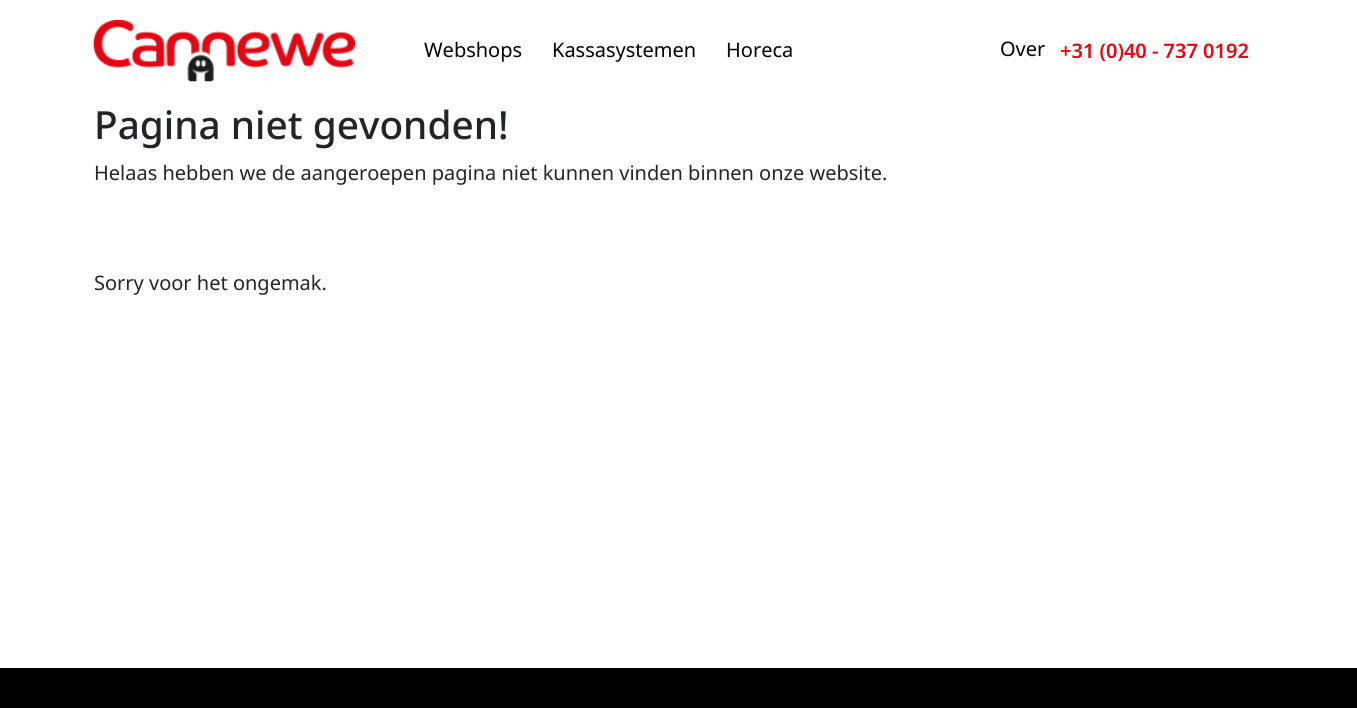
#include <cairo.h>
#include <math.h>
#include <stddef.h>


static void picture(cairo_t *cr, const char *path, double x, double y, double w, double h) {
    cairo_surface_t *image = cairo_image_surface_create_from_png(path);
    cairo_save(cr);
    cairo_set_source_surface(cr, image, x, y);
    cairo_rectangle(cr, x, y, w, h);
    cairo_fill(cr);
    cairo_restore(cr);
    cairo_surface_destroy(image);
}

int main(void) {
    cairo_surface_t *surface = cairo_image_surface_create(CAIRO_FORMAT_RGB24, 1357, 708);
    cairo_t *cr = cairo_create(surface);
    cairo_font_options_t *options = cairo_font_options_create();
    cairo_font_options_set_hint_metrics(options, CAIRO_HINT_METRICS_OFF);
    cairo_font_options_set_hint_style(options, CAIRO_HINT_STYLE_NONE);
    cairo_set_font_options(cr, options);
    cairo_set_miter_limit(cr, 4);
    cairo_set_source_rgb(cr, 1, 1, 1);
    cairo_paint(cr);
    picture(cr, "img1.png", 93, 20, 262, 62);
    cairo_select_font_face(cr, "Noto Sans", CAIRO_FONT_SLANT_NORMAL, CAIRO_FONT_WEIGHT_NORMAL);
    cairo_set_font_size(cr, 20);
    cairo_set_source_rgb(cr, 0, 0, 0);
    cairo_move_to(cr, 424, 57);
    cairo_show_text(cr, "Webshops");
    cairo_move_to(cr, 552, 57);
    cairo_show_text(cr, "Kassasystemen");
    cairo_move_to(cr, 726, 57);
    cairo_show_text(cr, "Horeca");
    cairo_move_to(cr, 1000, 56);
    cairo_show_text(cr, "Over");
    cairo_select_font_face(cr, "Noto Sans SemiBold", CAIRO_FONT_SLANT_NORMAL, CAIRO_FONT_WEIGHT_NORMAL);
    cairo_set_source_rgb(cr, 0.89, 0.024, 0.075);
    cairo_move_to(cr, 1060, 58);
    cairo_show_text(cr, "+31 (0)40 - 737 0192");
    cairo_select_font_face(cr, "Noto Sans Medium", CAIRO_FONT_SLANT_NORMAL, CAIRO_FONT_WEIGHT_NORMAL);
    cairo_set_font_size(cr, 38.75);
    cairo_set_source_rgb(cr, 0.129, 0.145, 0.161);
    cairo_move_to(cr, 94, 139);
    cairo_show_text(cr, "Pagina niet gevonden!");
    cairo_select_font_face(cr, "Noto Sans", CAIRO_FONT_SLANT_NORMAL, CAIRO_FONT_WEIGHT_NORMAL);
    cairo_set_font_size(cr, 20);
    cairo_move_to(cr, 94, 180);
    cairo_show_text(cr, "Helaas hebben we de aangeroepen pagina niet kunnen vinden binnen onze website.");
    cairo_move_to(cr, 94, 290);
    cairo_show_text(cr, "Sorry voor het ongemak.");
    cairo_set_source_rgb(cr, 0, 0, 0);
    cairo_rectangle(cr, 0, 668, 1357, 40);
    cairo_fill(cr);
    cairo_surface_write_to_png(surface, "page.png");
    cairo_font_options_destroy(options);
    cairo_destroy(cr);
    cairo_surface_destroy(surface);
    return 0;
}
